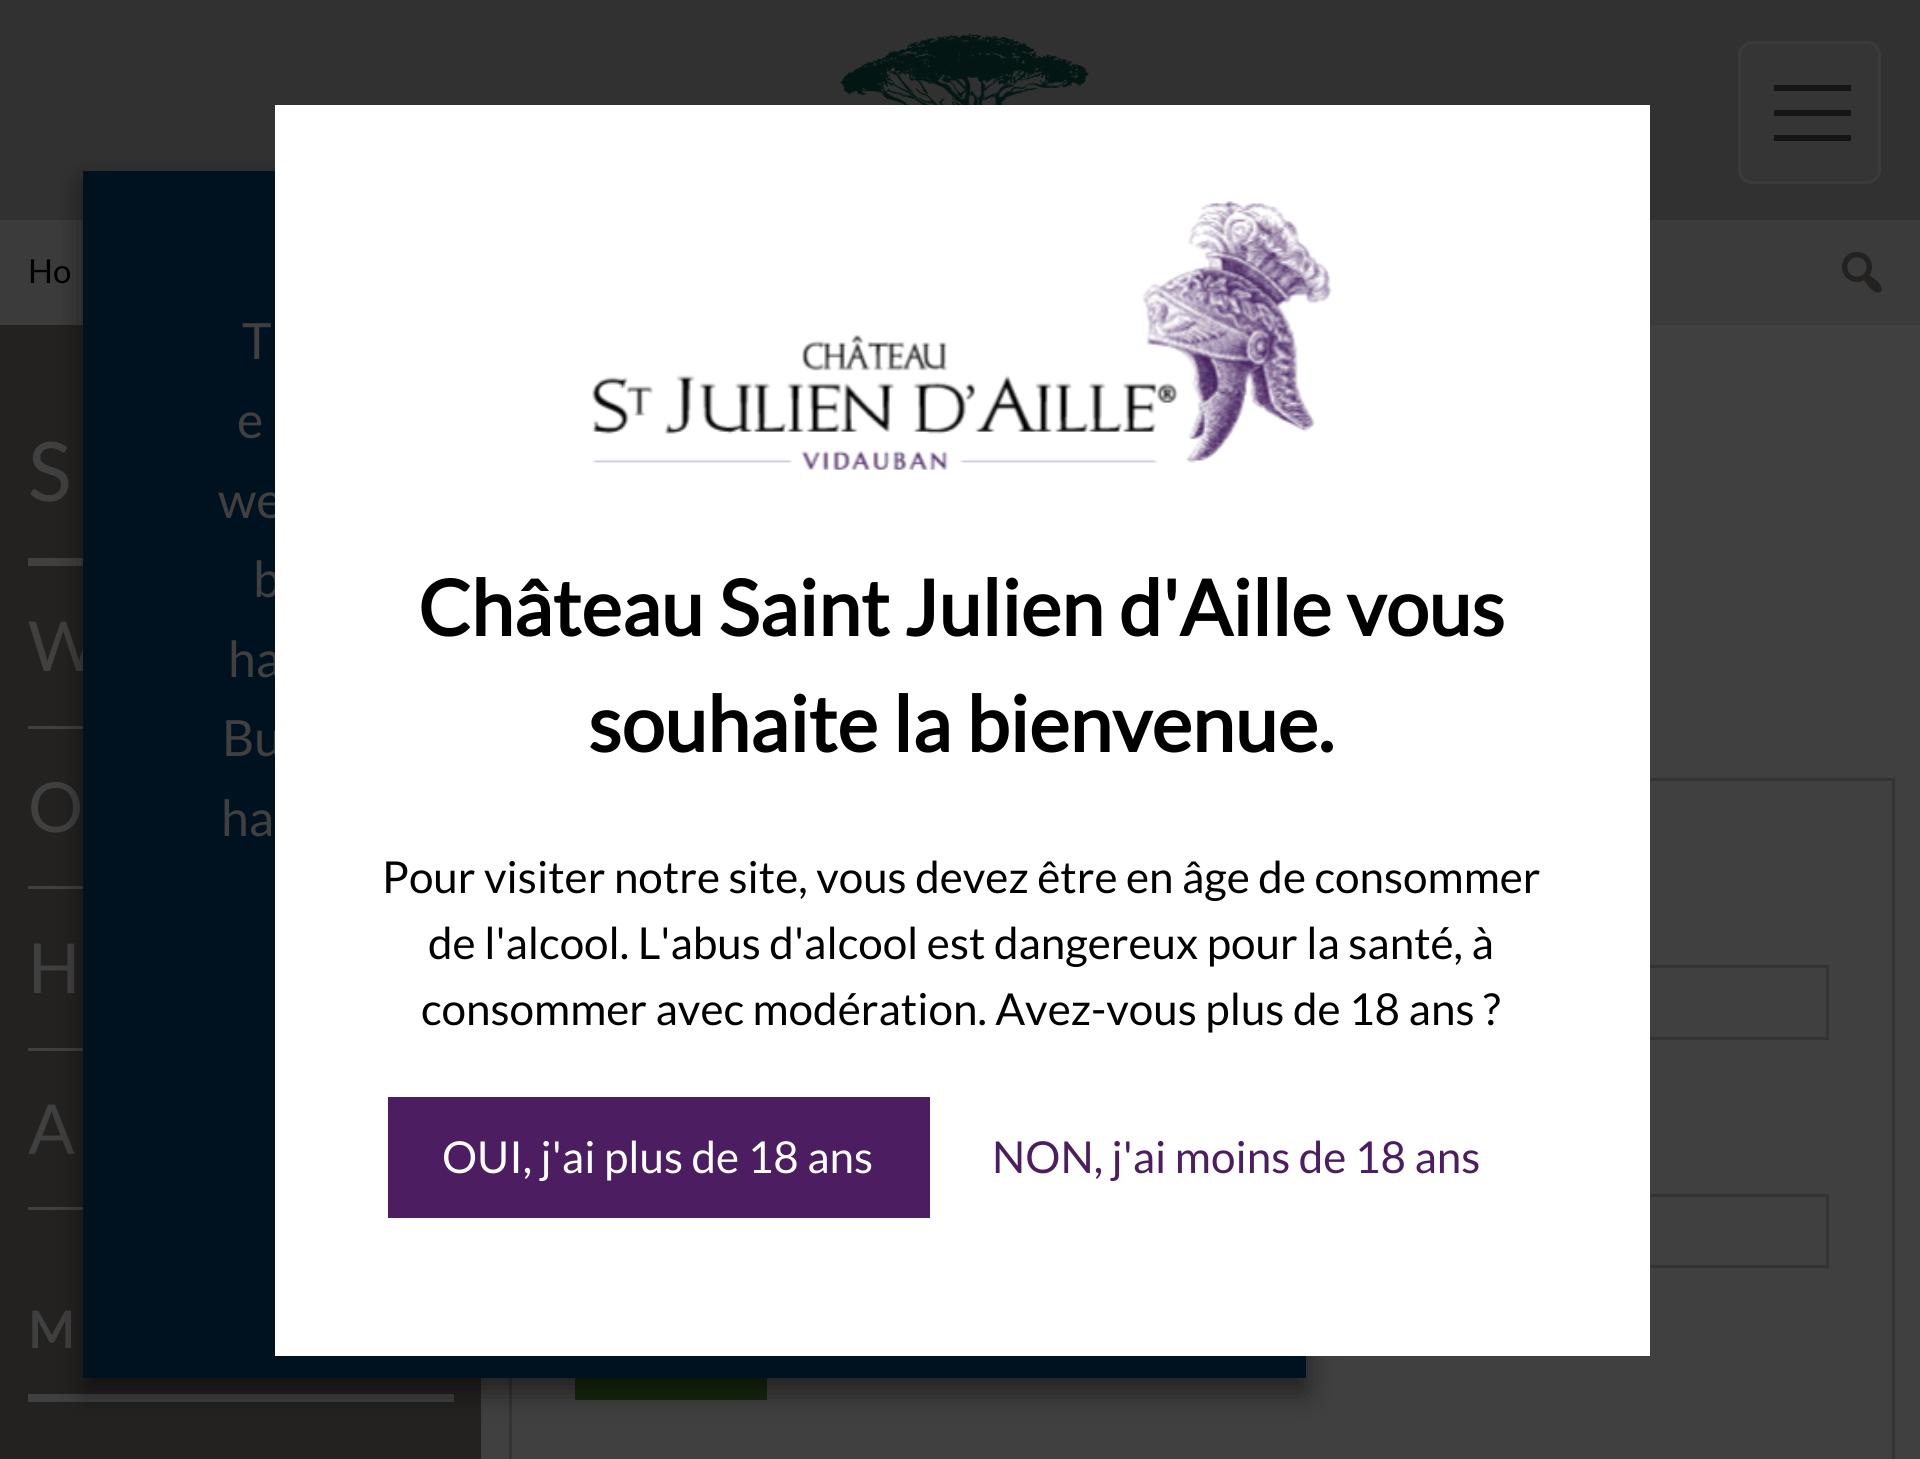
#include <cairo.h>
#include <math.h>
#include <stddef.h>


static void round_rect(cairo_t *cr, double x, double y, double w, double h, double r) {
    cairo_new_sub_path(cr);
    cairo_arc(cr, x + w - r, y + h - r, r, 0, M_PI / 2);
    cairo_arc(cr, x + r, y + h - r, r, M_PI / 2, M_PI);
    cairo_arc(cr, x + r, y + r, r, M_PI, 1.5 * M_PI);
    cairo_arc(cr, x + w - r, y + r, r, 1.5 * M_PI, 2 * M_PI);
    cairo_close_path(cr);
}

static void shadow(cairo_t *cr, double x, double y, double w, double h, double r, double blur, double alpha) {
    cairo_push_group_with_content(cr, CAIRO_CONTENT_ALPHA);
    cairo_set_operator(cr, CAIRO_OPERATOR_SOURCE);
    for (int i = 15; i >= -15 && fmin(w, h) + blur * i / 3 > 0; i -= 2) {
        double e = blur * i / 6;
        cairo_set_source_rgba(cr, 0, 0, 0, alpha * erfc((i - 1) / 8.5) / 2);
        round_rect(cr, x - e, y - e, w + 2 * e, h + 2 * e, fmax(0, fmin(r + e + blur * .6, fmin(w, h) / 2 + e)));
        cairo_fill(cr);
    }
    cairo_pattern_t *soft = cairo_pop_group(cr);
    cairo_mask(cr, soft);
    cairo_pattern_destroy(soft);
}

static void picture(cairo_t *cr, const char *path, double x, double y, double w, double h) {
    cairo_surface_t *image = cairo_image_surface_create_from_png(path);
    cairo_save(cr);
    cairo_set_source_surface(cr, image, x, y);
    cairo_rectangle(cr, x, y, w, h);
    cairo_fill(cr);
    cairo_restore(cr);
    cairo_surface_destroy(image);
}

int main(void) {
    cairo_surface_t *surface = cairo_image_surface_create(CAIRO_FORMAT_RGB24, 1920, 1459);
    cairo_t *cr = cairo_create(surface);
    cairo_font_options_t *options = cairo_font_options_create();
    cairo_font_options_set_hint_metrics(options, CAIRO_HINT_METRICS_OFF);
    cairo_font_options_set_hint_style(options, CAIRO_HINT_STYLE_NONE);
    cairo_set_font_options(cr, options);
    cairo_set_miter_limit(cr, 4);
    cairo_set_source_rgb(cr, 0.251, 0.251, 0.251);
    cairo_paint(cr);
    cairo_set_source_rgb(cr, 0.196, 0.192, 0.192);
    cairo_rectangle(cr, 0, 0, 1920, 220);
    cairo_fill(cr);
    picture(cr, "img1.png", 840, 32, 249, 73);
    cairo_set_source_rgb(cr, 0.212, 0.208, 0.208);
    round_rect(cr, 1738, 41, 143, 143, 14);
    cairo_fill(cr);
    round_rect(cr, 1739.5, 42.5, 140, 140, 12.5);
    cairo_set_source_rgba(cr, 0.251, 0.251, 0.251, 0.6);
    cairo_set_line_width(cr, 3);
    cairo_stroke(cr);
    cairo_set_source_rgb(cr, 0.086, 0.082, 0.082);
    cairo_rectangle(cr, 1774, 135, 77, 6);
    cairo_fill(cr);
    cairo_rectangle(cr, 1774, 85, 77, 6);
    cairo_fill(cr);
    cairo_rectangle(cr, 1774, 110, 77, 6);
    cairo_fill(cr);
    cairo_set_source_rgb(cr, 0.235, 0.231, 0.231);
    cairo_rectangle(cr, 0, 220, 1920, 105);
    cairo_fill(cr);
    cairo_select_font_face(cr, "Lato", CAIRO_FONT_SLANT_NORMAL, CAIRO_FONT_WEIGHT_NORMAL);
    cairo_set_font_size(cr, 33);
    cairo_set_source_rgb(cr, 0, 0, 0);
    cairo_move_to(cr, 28, 283);
    cairo_show_text(cr, "Ho");
    picture(cr, "img2.png", 1841, 251, 41, 42);
    cairo_set_source_rgb(cr, 0.141, 0.133, 0.129);
    cairo_rectangle(cr, 0, 325, 481, 1134);
    cairo_fill(cr);
    cairo_set_source_rgb(cr, 0.251, 0.251, 0.251);
    cairo_rectangle(cr, 28, 558, 55, 8);
    cairo_fill(cr);
    cairo_set_font_size(cr, 82);
    cairo_move_to(cr, 28, 501);
    cairo_show_text(cr, "S");
    cairo_rectangle(cr, 28, 726, 55, 3);
    cairo_fill(cr);
    cairo_set_font_size(cr, 69);
    cairo_move_to(cr, 28, 671);
    cairo_show_text(cr, "W");
    cairo_rectangle(cr, 28, 886, 55, 3);
    cairo_fill(cr);
    cairo_move_to(cr, 28, 832);
    cairo_show_text(cr, "O");
    cairo_rectangle(cr, 28, 1048, 55, 3);
    cairo_fill(cr);
    cairo_move_to(cr, 28, 993);
    cairo_show_text(cr, "H");
    cairo_rectangle(cr, 28, 1207, 55, 3);
    cairo_fill(cr);
    cairo_move_to(cr, 28, 1154);
    cairo_show_text(cr, "A");
    cairo_rectangle(cr, 28, 1394, 426, 8);
    cairo_fill(cr);
    cairo_select_font_face(cr, "Lato", CAIRO_FONT_SLANT_NORMAL, CAIRO_FONT_WEIGHT_BOLD);
    cairo_set_font_size(cr, 50);
    cairo_move_to(cr, 28, 1348);
    cairo_show_text(cr, "M");
    cairo_rectangle(cr, 510.5, 779.5, 1383, 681);
    cairo_set_source_rgb(cr, 0.208, 0.204, 0.208);
    cairo_stroke(cr);
    cairo_rectangle(cr, 576.5, 966.5, 1251, 72);
    cairo_set_source_rgb(cr, 0.2, 0.2, 0.2);
    cairo_stroke(cr);
    cairo_rectangle(cr, 576.5, 1195.5, 1251, 71);
    cairo_stroke(cr);
    cairo_set_source_rgb(cr, 0.086, 0.157, 0.051);
    cairo_rectangle(cr, 575, 1378, 192, 22);
    cairo_fill(cr);
    cairo_set_source_rgb(cr, 0, 0, 0);
    shadow(cr, 83, 184, 1223, 1208, 0, 14, 0.5);
    cairo_set_source_rgb(cr, 0, 0.067, 0.122);
    cairo_rectangle(cr, 83, 171, 1223, 1207);
    cairo_fill(cr);
    cairo_select_font_face(cr, "Lato", CAIRO_FONT_SLANT_NORMAL, CAIRO_FONT_WEIGHT_NORMAL);
    cairo_set_source_rgb(cr, 0.251, 0.251, 0.251);
    cairo_move_to(cr, 242, 359);
    cairo_show_text(cr, "T");
    cairo_move_to(cr, 237, 438);
    cairo_show_text(cr, "e");
    cairo_move_to(cr, 218, 518);
    cairo_show_text(cr, "we");
    cairo_move_to(cr, 253, 597);
    cairo_show_text(cr, "b");
    cairo_move_to(cr, 228, 677);
    cairo_show_text(cr, "ha");
    cairo_move_to(cr, 222, 756);
    cairo_show_text(cr, "Bu");
    cairo_move_to(cr, 221, 836);
    cairo_show_text(cr, "ha");
    cairo_set_source_rgb(cr, 1, 1, 1);
    cairo_rectangle(cr, 275, 105, 1375, 1251);
    cairo_fill(cr);
    picture(cr, "img3.png", 592, 201, 740, 269);
    cairo_select_font_face(cr, "Lato", CAIRO_FONT_SLANT_NORMAL, CAIRO_FONT_WEIGHT_BOLD);
    cairo_set_font_size(cr, 77);
    cairo_set_source_rgb(cr, 0, 0, 0);
    cairo_move_to(cr, 418, 636);
    cairo_show_text(cr, "Château Saint Julien d'Aille vous");
    cairo_move_to(cr, 588, 752);
    cairo_show_text(cr, "souhaite la bienvenue.");
    cairo_select_font_face(cr, "Lato", CAIRO_FONT_SLANT_NORMAL, CAIRO_FONT_WEIGHT_NORMAL);
    cairo_set_font_size(cr, 44);
    cairo_move_to(cr, 382, 893);
    cairo_show_text(cr, "Pour visiter notre site, vous devez être en âge de consommer");
    cairo_move_to(cr, 428, 959);
    cairo_show_text(cr, "de l'alcool. L'abus d'alcool est dangereux pour la santé, à");
    cairo_move_to(cr, 421, 1025);
    cairo_show_text(cr, "consommer avec modération. Avez-vous plus de 18 ans ?");
    cairo_set_source_rgb(cr, 0.298, 0.114, 0.38);
    cairo_rectangle(cr, 388, 1097, 542, 121);
    cairo_fill(cr);
    cairo_set_source_rgb(cr, 1, 1, 1);
    cairo_move_to(cr, 442, 1173);
    cairo_show_text(cr, "OUI, j'ai plus de 18 ans");
    cairo_set_source_rgb(cr, 0.298, 0.114, 0.38);
    cairo_move_to(cr, 992, 1173);
    cairo_show_text(cr, "NON, j'ai moins de 18 ans");
    cairo_surface_write_to_png(surface, "page.png");
    cairo_font_options_destroy(options);
    cairo_destroy(cr);
    cairo_surface_destroy(surface);
    return 0;
}
